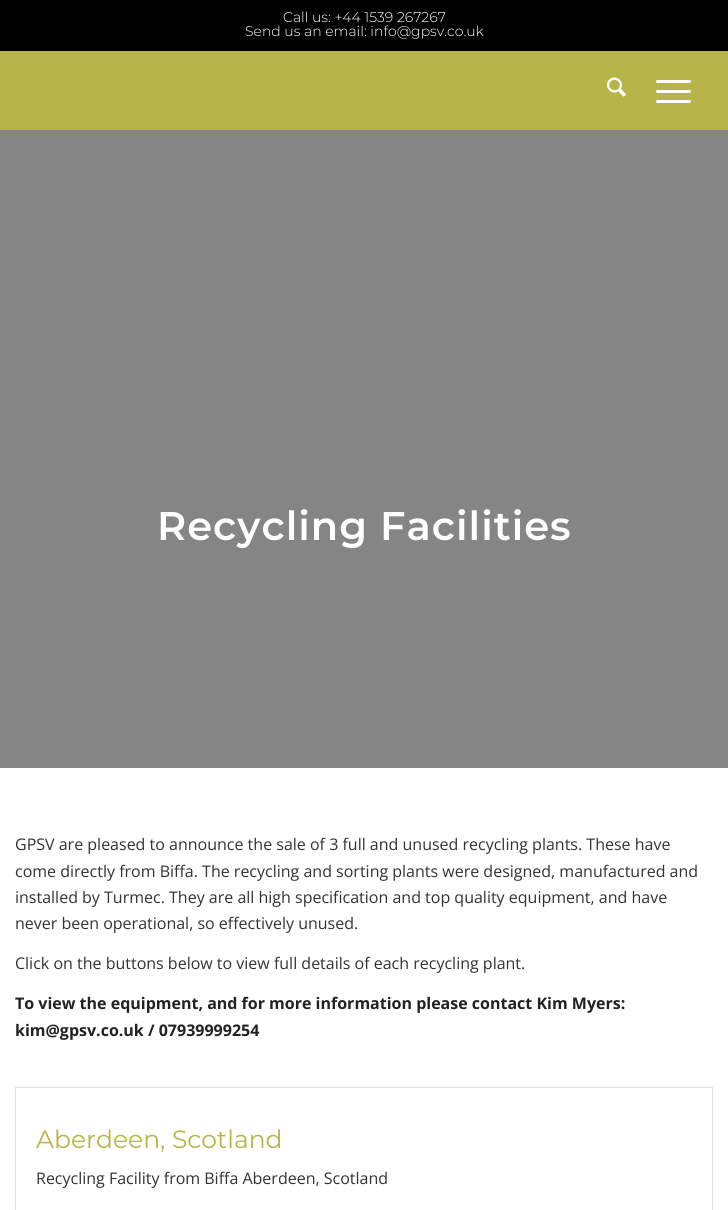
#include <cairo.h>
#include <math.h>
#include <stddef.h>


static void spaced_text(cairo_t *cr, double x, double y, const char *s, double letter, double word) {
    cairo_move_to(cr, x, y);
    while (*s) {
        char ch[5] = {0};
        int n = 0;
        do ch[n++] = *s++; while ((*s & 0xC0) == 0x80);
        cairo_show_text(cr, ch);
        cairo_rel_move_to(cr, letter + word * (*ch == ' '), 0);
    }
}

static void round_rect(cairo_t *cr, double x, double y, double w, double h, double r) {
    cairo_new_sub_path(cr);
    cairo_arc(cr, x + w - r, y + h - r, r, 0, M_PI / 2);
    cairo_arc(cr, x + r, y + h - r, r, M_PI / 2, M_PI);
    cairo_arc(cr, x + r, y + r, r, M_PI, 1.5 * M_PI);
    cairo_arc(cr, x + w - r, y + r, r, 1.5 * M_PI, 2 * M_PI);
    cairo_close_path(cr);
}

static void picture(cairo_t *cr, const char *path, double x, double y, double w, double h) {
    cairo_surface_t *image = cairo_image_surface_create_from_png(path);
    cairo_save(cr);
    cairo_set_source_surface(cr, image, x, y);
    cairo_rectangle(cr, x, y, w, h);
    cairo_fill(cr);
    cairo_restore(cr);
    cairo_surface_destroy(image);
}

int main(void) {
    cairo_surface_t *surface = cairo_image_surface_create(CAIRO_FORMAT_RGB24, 728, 1210);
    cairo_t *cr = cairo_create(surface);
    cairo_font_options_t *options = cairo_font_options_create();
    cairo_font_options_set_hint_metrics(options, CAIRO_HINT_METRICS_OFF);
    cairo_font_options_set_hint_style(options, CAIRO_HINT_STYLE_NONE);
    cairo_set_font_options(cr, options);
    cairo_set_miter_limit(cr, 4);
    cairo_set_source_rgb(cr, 1, 1, 1);
    cairo_paint(cr);
    cairo_set_source_rgb(cr, 0, 0, 0);
    cairo_rectangle(cr, 0, 0, 728, 51);
    cairo_fill(cr);
    cairo_select_font_face(cr, "Montserrat Light", CAIRO_FONT_SLANT_NORMAL, CAIRO_FONT_WEIGHT_NORMAL);
    cairo_set_font_size(cr, 14);
    cairo_set_source_rgb(cr, 1, 1, 1);
    cairo_move_to(cr, 283, 22);
    cairo_show_text(cr, "Call us: +44 1539 267267");
    cairo_move_to(cr, 245, 36);
    cairo_show_text(cr, "Send us an email: info@gpsv.co.uk");
    cairo_set_source_rgb(cr, 0.718, 0.71, 0.286);
    cairo_rectangle(cr, 0, 51, 728, 79);
    cairo_fill(cr);
    picture(cr, "img1.png", 607, 77, 19, 20);
    cairo_set_source_rgb(cr, 1, 1, 1);
    round_rect(cr, 656, 90, 35, 3, 1.5);
    cairo_fill(cr);
    round_rect(cr, 656, 80, 35, 3, 1.5);
    cairo_fill(cr);
    round_rect(cr, 656, 100, 35, 3, 1.5);
    cairo_fill(cr);
    cairo_set_source_rgb(cr, 0.522, 0.522, 0.522);
    cairo_rectangle(cr, 0, 130, 728, 638);
    cairo_fill(cr);
    cairo_select_font_face(cr, "Montserrat SemiBold", CAIRO_FONT_SLANT_NORMAL, CAIRO_FONT_WEIGHT_NORMAL);
    cairo_set_font_size(cr, 40);
    cairo_set_source_rgb(cr, 1, 1, 1);
    spaced_text(cr, 157, 540, "Recycling Facilities", 1, 0);
    cairo_select_font_face(cr, "Open Sans", CAIRO_FONT_SLANT_NORMAL, CAIRO_FONT_WEIGHT_NORMAL);
    cairo_set_font_size(cr, 16);
    cairo_set_source_rgb(cr, 0.2, 0.2, 0.2);
    cairo_move_to(cr, 15, 850);
    cairo_show_text(cr, "GPSV are pleased to announce the sale of 3 full and unused recycling plants. These have");
    cairo_move_to(cr, 15, 877);
    cairo_show_text(cr, "come directly from Biffa. The recycling and sorting plants were designed, manufactured and");
    cairo_move_to(cr, 15, 903);
    cairo_show_text(cr, "installed by Turmec. They are all high specification and top quality equipment, and have");
    cairo_move_to(cr, 15, 929);
    cairo_show_text(cr, "never been operational, so effectively unused.");
    cairo_move_to(cr, 15, 969);
    cairo_show_text(cr, "Click on the buttons below to view full details of each recycling plant.");
    cairo_select_font_face(cr, "Open Sans", CAIRO_FONT_SLANT_NORMAL, CAIRO_FONT_WEIGHT_BOLD);
    cairo_set_source_rgb(cr, 0.133, 0.133, 0.133);
    cairo_move_to(cr, 15, 1009);
    cairo_show_text(cr, "To view the equipment, and for more information please contact Kim Myers:");
    cairo_move_to(cr, 15, 1036);
    cairo_show_text(cr, "kim@gpsv.co.uk / 07939999254");
    cairo_rectangle(cr, 15.5, 1087.5, 697, 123);
    cairo_set_source_rgb(cr, 0.871, 0.886, 0.902);
    cairo_set_line_width(cr, 1);
    cairo_stroke(cr);
    cairo_select_font_face(cr, "Montserrat", CAIRO_FONT_SLANT_NORMAL, CAIRO_FONT_WEIGHT_NORMAL);
    cairo_set_font_size(cr, 25);
    cairo_set_source_rgb(cr, 0.718, 0.71, 0.286);
    cairo_move_to(cr, 36, 1148);
    cairo_show_text(cr, "Aberdeen, Scotland");
    cairo_select_font_face(cr, "Open Sans", CAIRO_FONT_SLANT_NORMAL, CAIRO_FONT_WEIGHT_NORMAL);
    cairo_set_font_size(cr, 16);
    cairo_set_source_rgb(cr, 0.2, 0.2, 0.2);
    cairo_move_to(cr, 36, 1184);
    cairo_show_text(cr, "Recycling Facility from Biffa Aberdeen, Scotland");
    cairo_surface_write_to_png(surface, "page.png");
    cairo_font_options_destroy(options);
    cairo_destroy(cr);
    cairo_surface_destroy(surface);
    return 0;
}
